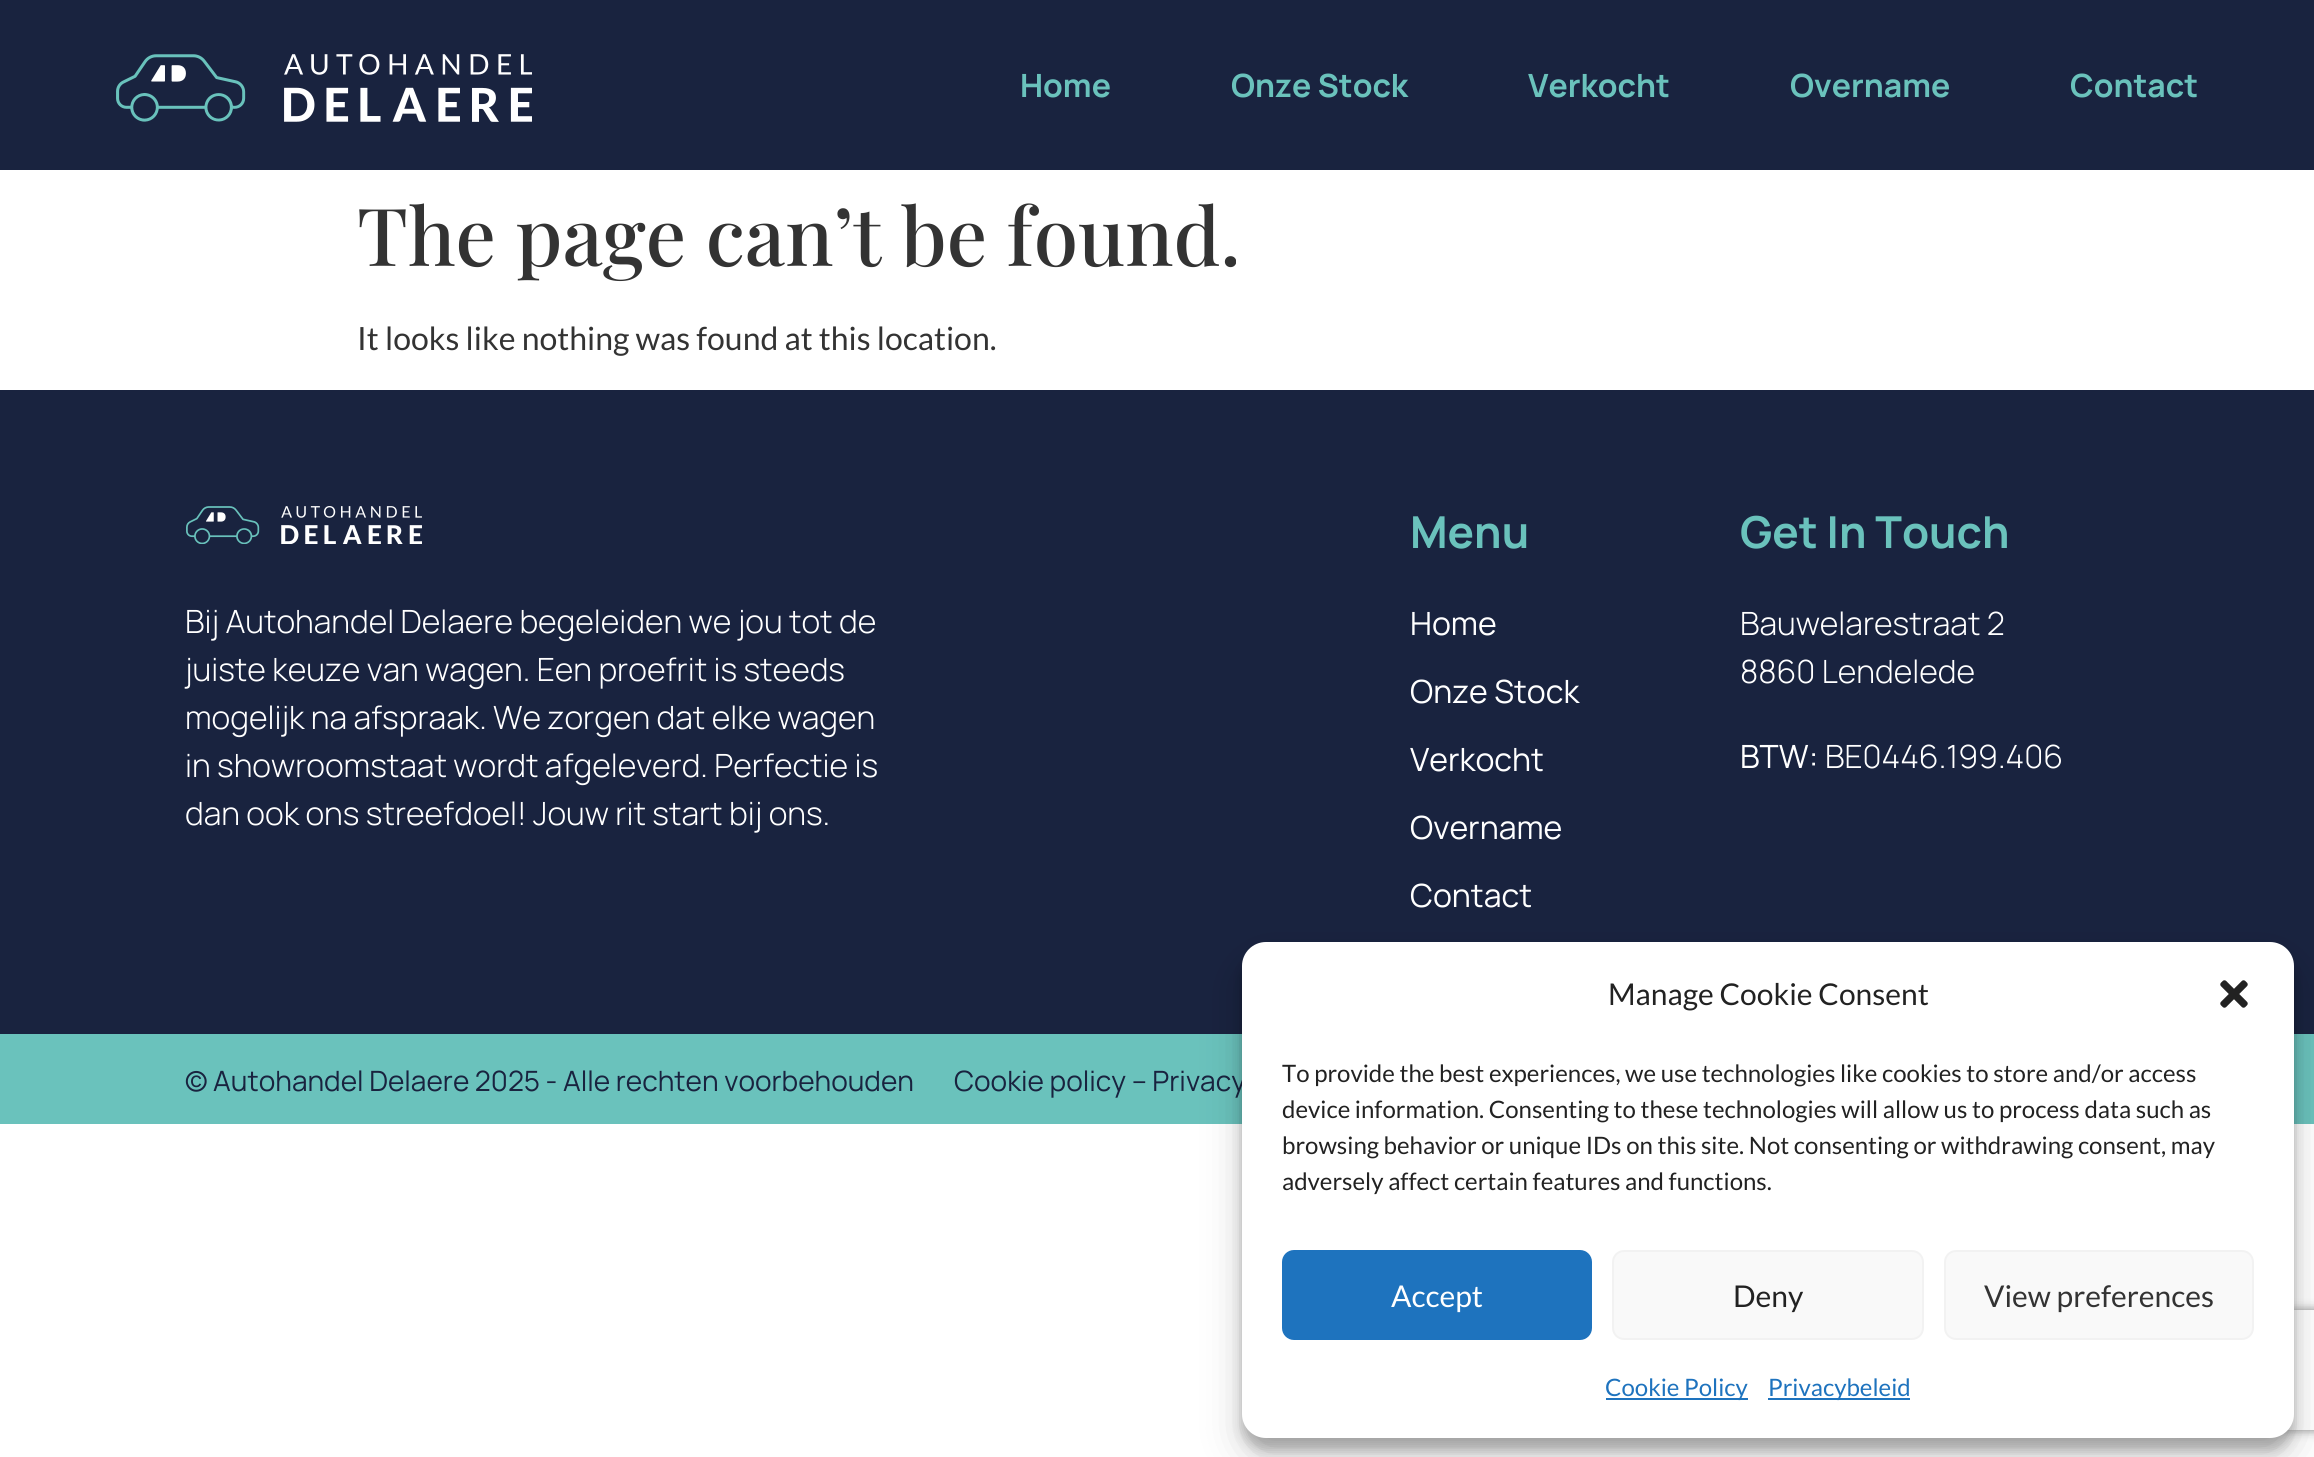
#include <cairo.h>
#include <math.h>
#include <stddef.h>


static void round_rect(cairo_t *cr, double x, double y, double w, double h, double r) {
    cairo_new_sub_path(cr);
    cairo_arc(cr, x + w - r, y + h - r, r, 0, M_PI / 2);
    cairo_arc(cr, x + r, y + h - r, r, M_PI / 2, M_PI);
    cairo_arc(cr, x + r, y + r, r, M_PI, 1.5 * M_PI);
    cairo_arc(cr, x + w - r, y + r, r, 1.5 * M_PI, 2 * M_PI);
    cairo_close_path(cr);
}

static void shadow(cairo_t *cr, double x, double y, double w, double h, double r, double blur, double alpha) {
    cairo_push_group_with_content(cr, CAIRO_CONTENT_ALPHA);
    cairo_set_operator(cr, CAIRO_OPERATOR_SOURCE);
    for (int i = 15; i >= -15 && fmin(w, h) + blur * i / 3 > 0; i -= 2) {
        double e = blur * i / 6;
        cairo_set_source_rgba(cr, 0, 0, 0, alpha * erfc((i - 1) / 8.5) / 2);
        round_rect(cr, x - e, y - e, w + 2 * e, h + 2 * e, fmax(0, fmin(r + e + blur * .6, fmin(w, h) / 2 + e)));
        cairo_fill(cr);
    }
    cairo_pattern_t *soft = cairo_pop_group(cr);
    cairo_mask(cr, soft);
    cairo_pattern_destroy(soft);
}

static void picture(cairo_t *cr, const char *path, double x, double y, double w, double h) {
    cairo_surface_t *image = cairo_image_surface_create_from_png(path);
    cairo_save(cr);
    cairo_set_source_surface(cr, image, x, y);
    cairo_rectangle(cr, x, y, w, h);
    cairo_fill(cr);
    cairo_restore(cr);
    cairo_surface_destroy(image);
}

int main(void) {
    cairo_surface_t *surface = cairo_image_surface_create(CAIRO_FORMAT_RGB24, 2314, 1457);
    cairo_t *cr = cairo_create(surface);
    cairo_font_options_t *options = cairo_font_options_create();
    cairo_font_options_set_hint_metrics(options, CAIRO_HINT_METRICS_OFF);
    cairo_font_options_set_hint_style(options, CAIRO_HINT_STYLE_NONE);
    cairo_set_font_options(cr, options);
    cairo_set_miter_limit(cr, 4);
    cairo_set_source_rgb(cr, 1, 1, 1);
    cairo_paint(cr);
    cairo_set_source_rgb(cr, 0.098, 0.137, 0.247);
    cairo_rectangle(cr, 0, 0, 2314, 170);
    cairo_fill(cr);
    picture(cr, "img1.png", 116, 54, 416, 68);
    cairo_select_font_face(cr, "Manrope", CAIRO_FONT_SLANT_NORMAL, CAIRO_FONT_WEIGHT_BOLD);
    cairo_set_font_size(cr, 32);
    cairo_set_source_rgb(cr, 0.416, 0.761, 0.737);
    cairo_move_to(cr, 1020, 97);
    cairo_show_text(cr, "Home");
    cairo_move_to(cr, 1231, 97);
    cairo_show_text(cr, "Onze Stock");
    cairo_move_to(cr, 1528, 97);
    cairo_show_text(cr, "Verkocht");
    cairo_move_to(cr, 1790, 97);
    cairo_show_text(cr, "Overname");
    cairo_move_to(cr, 2070, 97);
    cairo_show_text(cr, "Contact");
    cairo_select_font_face(cr, "Playfair Display Medium", CAIRO_FONT_SLANT_NORMAL, CAIRO_FONT_WEIGHT_NORMAL);
    cairo_set_font_size(cr, 80);
    cairo_set_source_rgb(cr, 0.2, 0.2, 0.2);
    cairo_move_to(cr, 357, 266);
    cairo_show_text(cr, "The page can’t be found.");
    cairo_select_font_face(cr, "Lato", CAIRO_FONT_SLANT_NORMAL, CAIRO_FONT_WEIGHT_NORMAL);
    cairo_set_font_size(cr, 32);
    cairo_move_to(cr, 357, 350);
    cairo_show_text(cr, "It looks like nothing was found at this location.");
    cairo_set_source_rgb(cr, 0.098, 0.137, 0.247);
    cairo_rectangle(cr, 0, 390, 2314, 644);
    cairo_fill(cr);
    picture(cr, "img2.png", 186, 506, 236, 38);
    cairo_select_font_face(cr, "Manrope Light", CAIRO_FONT_SLANT_NORMAL, CAIRO_FONT_WEIGHT_NORMAL);
    cairo_set_source_rgb(cr, 1, 1, 1);
    cairo_move_to(cr, 185, 633);
    cairo_show_text(cr, "Bij Autohandel Delaere begeleiden we jou tot de");
    cairo_move_to(cr, 185, 681);
    cairo_show_text(cr, "juiste keuze van wagen. Een proefrit is steeds");
    cairo_move_to(cr, 185, 729);
    cairo_show_text(cr, "mogelijk na afspraak. We zorgen dat elke wagen");
    cairo_move_to(cr, 185, 777);
    cairo_show_text(cr, "in showroomstaat wordt afgeleverd. Perfectie is");
    cairo_move_to(cr, 185, 825);
    cairo_show_text(cr, "dan ook ons streefdoel! Jouw rit start bij ons.");
    cairo_select_font_face(cr, "Manrope", CAIRO_FONT_SLANT_NORMAL, CAIRO_FONT_WEIGHT_BOLD);
    cairo_set_font_size(cr, 44);
    cairo_set_source_rgb(cr, 0.416, 0.761, 0.737);
    cairo_move_to(cr, 1410, 548);
    cairo_show_text(cr, "Menu");
    cairo_select_font_face(cr, "Manrope", CAIRO_FONT_SLANT_NORMAL, CAIRO_FONT_WEIGHT_NORMAL);
    cairo_set_font_size(cr, 32);
    cairo_set_source_rgb(cr, 1, 1, 1);
    cairo_move_to(cr, 1410, 635);
    cairo_show_text(cr, "Home");
    cairo_move_to(cr, 1410, 703);
    cairo_show_text(cr, "Onze Stock");
    cairo_move_to(cr, 1410, 771);
    cairo_show_text(cr, "Verkocht");
    cairo_move_to(cr, 1410, 839);
    cairo_show_text(cr, "Overname");
    cairo_move_to(cr, 1410, 907);
    cairo_show_text(cr, "Contact");
    cairo_select_font_face(cr, "Manrope", CAIRO_FONT_SLANT_NORMAL, CAIRO_FONT_WEIGHT_BOLD);
    cairo_set_font_size(cr, 44);
    cairo_set_source_rgb(cr, 0.416, 0.761, 0.737);
    cairo_move_to(cr, 1740, 548);
    cairo_show_text(cr, "Get In Touch");
    cairo_select_font_face(cr, "Manrope Light", CAIRO_FONT_SLANT_NORMAL, CAIRO_FONT_WEIGHT_NORMAL);
    cairo_set_font_size(cr, 32);
    cairo_set_source_rgb(cr, 1, 1, 1);
    cairo_move_to(cr, 1740, 635);
    cairo_show_text(cr, "Bauwelarestraat 2");
    cairo_move_to(cr, 1740, 683);
    cairo_show_text(cr, "8860 Lendelede");
    cairo_select_font_face(cr, "Manrope", CAIRO_FONT_SLANT_NORMAL, CAIRO_FONT_WEIGHT_NORMAL);
    cairo_move_to(cr, 1740, 768);
    cairo_show_text(cr, "BTW:");
    cairo_select_font_face(cr, "Manrope Light", CAIRO_FONT_SLANT_NORMAL, CAIRO_FONT_WEIGHT_NORMAL);
    cairo_move_to(cr, 1825, 768);
    cairo_show_text(cr, "BE0446.199.406");
    cairo_set_source_rgb(cr, 0.416, 0.761, 0.737);
    cairo_rectangle(cr, 0, 1034, 2314, 90);
    cairo_fill(cr);
    cairo_select_font_face(cr, "Manrope", CAIRO_FONT_SLANT_NORMAL, CAIRO_FONT_WEIGHT_NORMAL);
    cairo_set_font_size(cr, 28);
    cairo_set_source_rgb(cr, 0.098, 0.137, 0.247);
    cairo_move_to(cr, 185, 1091);
    cairo_show_text(cr, "© Autohandel Delaere 2025 - Alle rechten voorbehouden");
    cairo_move_to(cr, 954, 1091);
    cairo_show_text(cr, "Cookie policy – Privacy");
    cairo_set_source_rgb(cr, 0, 0, 0);
    shadow(cr, 1242, 954, 1052, 496, 24, 6, 0.23);
    shadow(cr, 1242, 962, 1052, 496, 24, 20, 0.19);
    cairo_save(cr);
    cairo_set_fill_rule(cr, CAIRO_FILL_RULE_EVEN_ODD);
    cairo_new_path(cr);
    cairo_move_to(cr, 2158, 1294);
    cairo_line_to(cr, 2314, 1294);
    cairo_line_to(cr, 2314, 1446);
    cairo_line_to(cr, 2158, 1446);
    cairo_close_path(cr);
    cairo_move_to(cr, 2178, 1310);
    cairo_line_to(cr, 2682, 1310);
    cairo_curve_to(cr, 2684, 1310, 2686, 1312, 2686, 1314);
    cairo_line_to(cr, 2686, 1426);
    cairo_curve_to(cr, 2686, 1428, 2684, 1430, 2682, 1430);
    cairo_line_to(cr, 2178, 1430);
    cairo_curve_to(cr, 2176, 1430, 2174, 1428, 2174, 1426);
    cairo_line_to(cr, 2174, 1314);
    cairo_curve_to(cr, 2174, 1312, 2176, 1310, 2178, 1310);
    cairo_close_path(cr);
    cairo_clip(cr);
    cairo_set_source_rgb(cr, 0.502, 0.502, 0.502);
    shadow(cr, 2174, 1310, 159, 120, 4, 5, 1);
    cairo_restore(cr);
    cairo_set_source_rgb(cr, 1, 1, 1);
    round_rect(cr, 1242, 942, 1052, 496, 24);
    cairo_fill(cr);
    cairo_select_font_face(cr, "Lato", CAIRO_FONT_SLANT_NORMAL, CAIRO_FONT_WEIGHT_NORMAL);
    cairo_set_font_size(cr, 30);
    cairo_set_source_rgb(cr, 0.133, 0.133, 0.133);
    cairo_move_to(cr, 1608, 1005);
    cairo_show_text(cr, "Manage Cookie Consent");
    picture(cr, "img3.png", 2220, 980, 28, 28);
    cairo_set_font_size(cr, 24);
    cairo_move_to(cr, 1282, 1082);
    cairo_show_text(cr, "To provide the best experiences, we use technologies like cookies to store and/or access");
    cairo_move_to(cr, 1282, 1118);
    cairo_show_text(cr, "device information. Consenting to these technologies will allow us to process data such as");
    cairo_move_to(cr, 1282, 1154);
    cairo_show_text(cr, "browsing behavior or unique IDs on this site. Not consenting or withdrawing consent, may");
    cairo_move_to(cr, 1282, 1190);
    cairo_show_text(cr, "adversely affect certain features and functions.");
    cairo_set_source_rgb(cr, 0.118, 0.451, 0.745);
    round_rect(cr, 1283, 1251, 308, 88, 11);
    cairo_fill_preserve(cr);
    cairo_stroke(cr);
    cairo_set_font_size(cr, 30);
    cairo_set_source_rgb(cr, 1, 1, 1);
    cairo_move_to(cr, 1391, 1307);
    cairo_show_text(cr, "Accept");
    cairo_set_source_rgb(cr, 0.976, 0.976, 0.976);
    round_rect(cr, 1613, 1251, 310, 88, 11);
    cairo_fill_preserve(cr);
    cairo_set_source_rgb(cr, 0.949, 0.949, 0.949);
    cairo_stroke(cr);
    cairo_set_source_rgb(cr, 0.133, 0.133, 0.133);
    cairo_move_to(cr, 1733, 1307);
    cairo_show_text(cr, "Deny");
    cairo_set_source_rgb(cr, 0.976, 0.976, 0.976);
    round_rect(cr, 1945, 1251, 308, 88, 11);
    cairo_fill_preserve(cr);
    cairo_set_source_rgb(cr, 0.949, 0.949, 0.949);
    cairo_stroke(cr);
    cairo_set_source_rgb(cr, 0.2, 0.2, 0.2);
    cairo_move_to(cr, 1984, 1307);
    cairo_show_text(cr, "View preferences");
    cairo_set_source_rgb(cr, 0.118, 0.451, 0.745);
    cairo_rectangle(cr, 1606, 1398, 142, 2);
    cairo_fill(cr);
    cairo_set_font_size(cr, 24);
    cairo_move_to(cr, 1605, 1396);
    cairo_show_text(cr, "Cookie Policy");
    cairo_rectangle(cr, 1768, 1398, 142, 2);
    cairo_fill(cr);
    cairo_move_to(cr, 1768, 1396);
    cairo_show_text(cr, "Privacybeleid");
    cairo_surface_write_to_png(surface, "page.png");
    cairo_font_options_destroy(options);
    cairo_destroy(cr);
    cairo_surface_destroy(surface);
    return 0;
}
